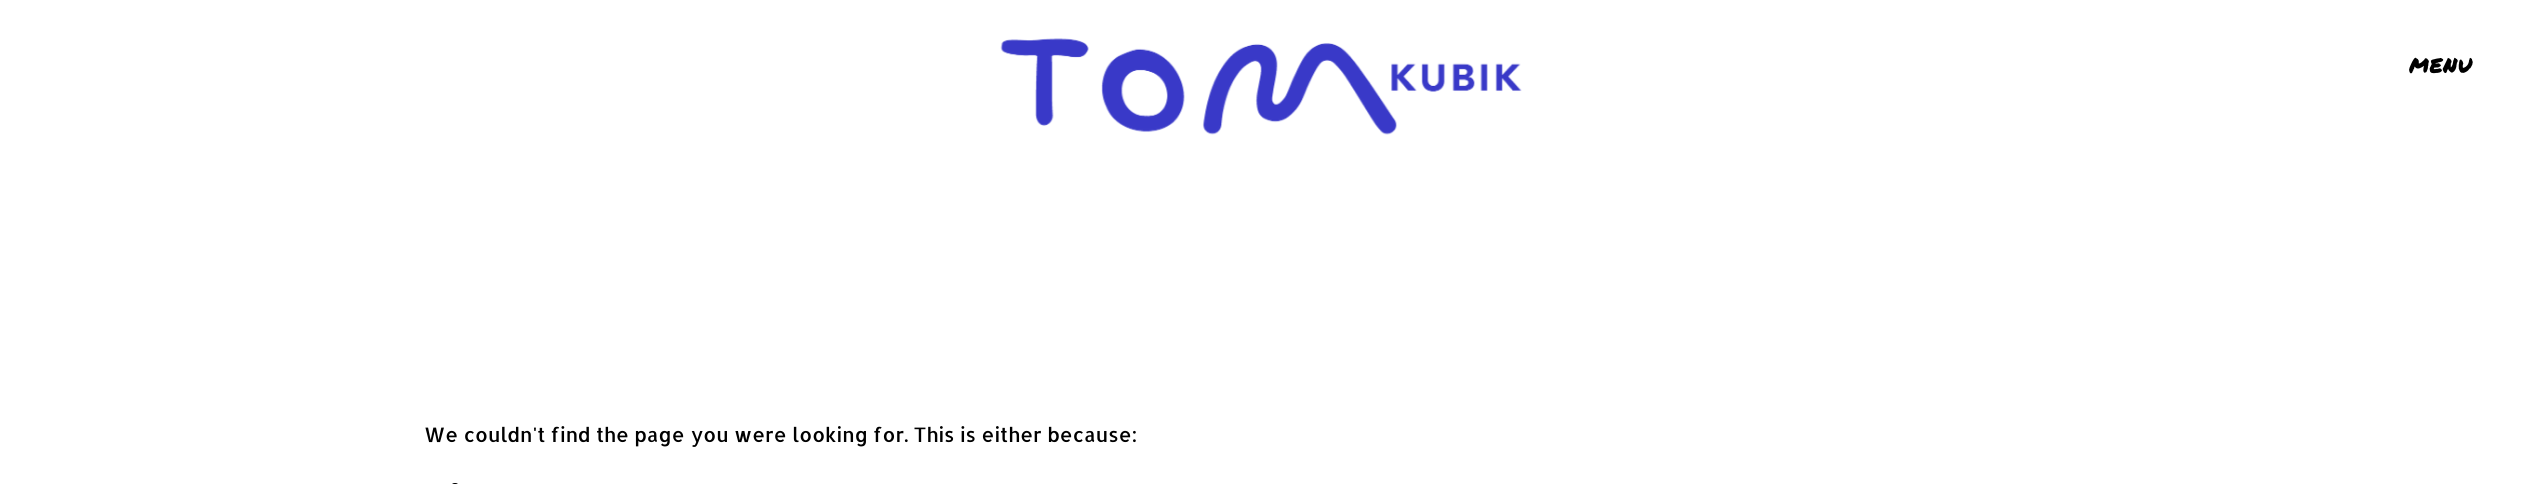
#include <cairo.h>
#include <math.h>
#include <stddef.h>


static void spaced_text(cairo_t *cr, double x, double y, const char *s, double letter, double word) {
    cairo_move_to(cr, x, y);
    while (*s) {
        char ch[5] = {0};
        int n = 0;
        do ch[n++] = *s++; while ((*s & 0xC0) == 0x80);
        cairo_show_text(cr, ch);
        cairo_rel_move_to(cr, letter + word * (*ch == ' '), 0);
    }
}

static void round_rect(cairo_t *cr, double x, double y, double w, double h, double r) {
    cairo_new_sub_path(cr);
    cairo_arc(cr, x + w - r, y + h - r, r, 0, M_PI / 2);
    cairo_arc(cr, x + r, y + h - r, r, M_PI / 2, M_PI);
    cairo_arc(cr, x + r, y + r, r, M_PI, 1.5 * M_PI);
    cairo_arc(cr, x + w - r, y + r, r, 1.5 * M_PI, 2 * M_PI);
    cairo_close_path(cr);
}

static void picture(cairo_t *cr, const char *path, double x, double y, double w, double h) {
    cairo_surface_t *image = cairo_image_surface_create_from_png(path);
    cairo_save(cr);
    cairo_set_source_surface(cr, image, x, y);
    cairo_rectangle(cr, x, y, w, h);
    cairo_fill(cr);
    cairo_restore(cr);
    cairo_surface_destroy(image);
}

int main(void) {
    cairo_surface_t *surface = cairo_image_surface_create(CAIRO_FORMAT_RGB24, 2522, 484);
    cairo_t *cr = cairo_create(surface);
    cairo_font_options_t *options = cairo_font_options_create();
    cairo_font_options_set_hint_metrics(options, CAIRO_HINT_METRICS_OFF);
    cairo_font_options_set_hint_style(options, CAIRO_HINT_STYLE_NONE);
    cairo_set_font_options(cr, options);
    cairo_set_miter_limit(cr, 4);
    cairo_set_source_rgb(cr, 1, 1, 1);
    cairo_paint(cr);
    picture(cr, "img1.png", 1000, 38, 522, 97);
    cairo_select_font_face(cr, "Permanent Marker", CAIRO_FONT_SLANT_NORMAL, CAIRO_FONT_WEIGHT_BOLD);
    cairo_set_font_size(cr, 20);
    cairo_set_source_rgb(cr, 0, 0, 0);
    spaced_text(cr, 2409, 73, "MENU", 1, 0);
    cairo_select_font_face(cr, "Allerta", CAIRO_FONT_SLANT_NORMAL, CAIRO_FONT_WEIGHT_NORMAL);
    cairo_move_to(cr, 424, 442);
    cairo_show_text(cr, "We couldn't find the page you were looking for. This is either because:");
    round_rect(cr, 451, 483, 8, 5, 3.5);
    cairo_fill(cr);
    cairo_surface_write_to_png(surface, "page.png");
    cairo_font_options_destroy(options);
    cairo_destroy(cr);
    cairo_surface_destroy(surface);
    return 0;
}
